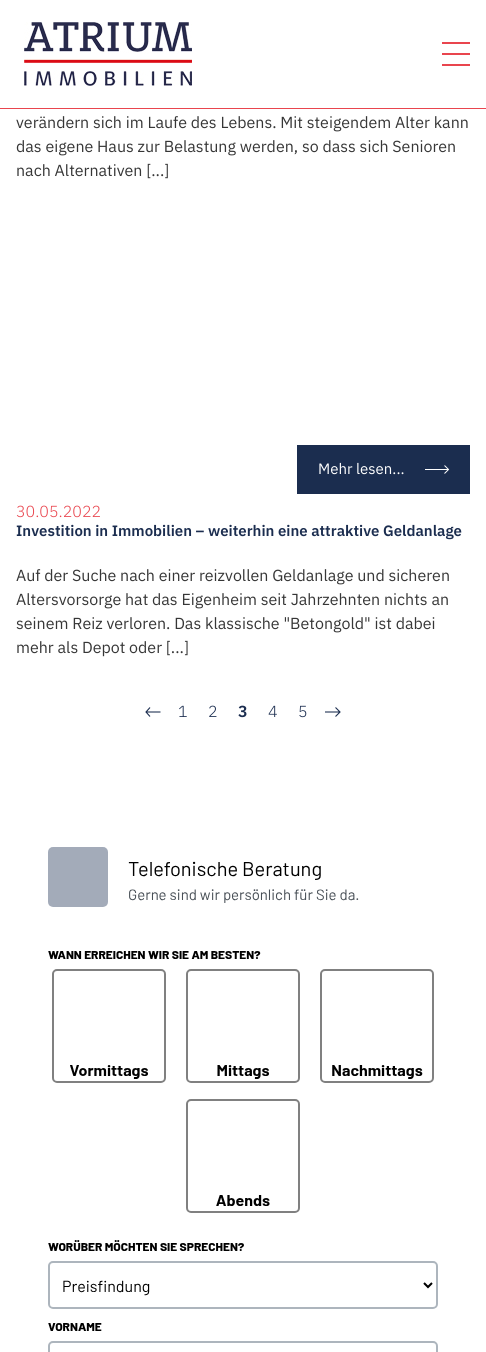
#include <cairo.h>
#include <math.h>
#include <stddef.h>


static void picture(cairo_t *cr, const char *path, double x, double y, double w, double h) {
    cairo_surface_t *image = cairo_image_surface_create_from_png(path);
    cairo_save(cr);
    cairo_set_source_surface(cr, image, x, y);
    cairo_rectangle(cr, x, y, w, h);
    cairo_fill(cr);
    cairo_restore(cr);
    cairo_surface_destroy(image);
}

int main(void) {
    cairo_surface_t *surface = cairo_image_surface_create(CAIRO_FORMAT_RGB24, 486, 1352);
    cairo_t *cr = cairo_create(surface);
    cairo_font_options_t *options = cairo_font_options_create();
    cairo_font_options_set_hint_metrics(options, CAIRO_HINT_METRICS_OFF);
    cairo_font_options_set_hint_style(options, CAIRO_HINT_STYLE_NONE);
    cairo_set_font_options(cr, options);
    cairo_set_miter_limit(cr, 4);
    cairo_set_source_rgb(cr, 1, 1, 1);
    cairo_paint(cr);
    cairo_set_source_rgb(cr, 0.914, 0.271, 0.306);
    cairo_rectangle(cr, 0, 108, 486, 1);
    cairo_fill(cr);
    picture(cr, "img1.png", 24, 22, 168, 64);
    cairo_rectangle(cr, 442, 42, 28, 2);
    cairo_fill(cr);
    cairo_rectangle(cr, 442, 53, 28, 2);
    cairo_fill(cr);
    cairo_rectangle(cr, 442, 64, 28, 2);
    cairo_fill(cr);
    cairo_select_font_face(cr, "IBM Plex Sans", CAIRO_FONT_SLANT_NORMAL, CAIRO_FONT_WEIGHT_NORMAL);
    cairo_set_font_size(cr, 16);
    cairo_set_source_rgb(cr, 0.212, 0.212, 0.212);
    cairo_move_to(cr, 16, 128);
    cairo_show_text(cr, "verändern sich im Laufe des Lebens. Mit steigendem Alter kann");
    cairo_move_to(cr, 16, 152);
    cairo_show_text(cr, "das eigene Haus zur Belastung werden, so dass sich Senioren");
    cairo_move_to(cr, 16, 176);
    cairo_show_text(cr, "nach Alternativen [...]");
    cairo_set_source_rgb(cr, 0.106, 0.176, 0.31);
    cairo_rectangle(cr, 297, 445, 173, 49);
    cairo_fill(cr);
    cairo_set_font_size(cr, 15);
    cairo_set_source_rgb(cr, 1, 1, 1);
    cairo_move_to(cr, 318, 474);
    cairo_show_text(cr, "Mehr lesen...");
    cairo_rectangle(cr, 425, 469, 23, 1);
    cairo_fill(cr);
    cairo_new_path(cr);
    cairo_move_to(cr, 444.5, 465.5);
    cairo_line_to(cr, 448.5, 469.5);
    cairo_line_to(cr, 444.5, 473.5);
    cairo_set_line_width(cr, 1);
    cairo_stroke(cr);
    cairo_select_font_face(cr, "IBM Plex Sans Light", CAIRO_FONT_SLANT_NORMAL, CAIRO_FONT_WEIGHT_NORMAL);
    cairo_set_font_size(cr, 16);
    cairo_set_source_rgb(cr, 0.914, 0.271, 0.306);
    cairo_move_to(cr, 16, 517);
    cairo_show_text(cr, "30.05.2022");
    cairo_select_font_face(cr, "IBM Plex Sans SemiBold", CAIRO_FONT_SLANT_NORMAL, CAIRO_FONT_WEIGHT_NORMAL);
    cairo_set_font_size(cr, 15);
    cairo_set_source_rgb(cr, 0.106, 0.176, 0.31);
    cairo_move_to(cr, 16, 536);
    cairo_show_text(cr, "Investition in Immobilien – weiterhin eine attraktive Geldanlage");
    cairo_select_font_face(cr, "IBM Plex Sans", CAIRO_FONT_SLANT_NORMAL, CAIRO_FONT_WEIGHT_NORMAL);
    cairo_set_font_size(cr, 16);
    cairo_set_source_rgb(cr, 0.212, 0.212, 0.212);
    cairo_move_to(cr, 16, 581);
    cairo_show_text(cr, "Auf der Suche nach einer reizvollen Geldanlage und sicheren");
    cairo_move_to(cr, 16, 605);
    cairo_show_text(cr, "Altersvorsorge hat das Eigenheim seit Jahrzehnten nichts an");
    cairo_move_to(cr, 16, 629);
    cairo_show_text(cr, "seinem Reiz verloren. Das klassische \"Betongold\" ist dabei");
    cairo_move_to(cr, 16, 653);
    cairo_show_text(cr, "mehr als Depot oder [...]");
    cairo_new_path(cr);
    cairo_move_to(cr, 160.5, 712);
    cairo_line_to(cr, 146, 712);
    cairo_move_to(cr, 150, 707.5);
    cairo_line_to(cr, 146, 712);
    cairo_line_to(cr, 150, 716.5);
    cairo_set_source_rgb(cr, 0.106, 0.176, 0.31);
    cairo_set_line_width(cr, 1.1);
    cairo_stroke(cr);
    cairo_select_font_face(cr, "IBM Plex Sans Light", CAIRO_FONT_SLANT_NORMAL, CAIRO_FONT_WEIGHT_NORMAL);
    cairo_move_to(cr, 178, 717);
    cairo_show_text(cr, "1");
    cairo_move_to(cr, 208, 717);
    cairo_show_text(cr, "2");
    cairo_select_font_face(cr, "IBM Plex Sans SemiBold", CAIRO_FONT_SLANT_NORMAL, CAIRO_FONT_WEIGHT_NORMAL);
    cairo_move_to(cr, 238, 717);
    cairo_show_text(cr, "3");
    cairo_select_font_face(cr, "IBM Plex Sans Light", CAIRO_FONT_SLANT_NORMAL, CAIRO_FONT_WEIGHT_NORMAL);
    cairo_move_to(cr, 268, 717);
    cairo_show_text(cr, "4");
    cairo_move_to(cr, 298, 717);
    cairo_show_text(cr, "5");
    cairo_new_path(cr);
    cairo_move_to(cr, 325, 712);
    cairo_line_to(cr, 339.5, 712);
    cairo_move_to(cr, 335.5, 707.5);
    cairo_line_to(cr, 340, 712);
    cairo_line_to(cr, 335.5, 716.5);
    cairo_stroke(cr);
    picture(cr, "img2.png", 48, 847, 390, 505);
    cairo_surface_write_to_png(surface, "page.png");
    cairo_font_options_destroy(options);
    cairo_destroy(cr);
    cairo_surface_destroy(surface);
    return 0;
}
